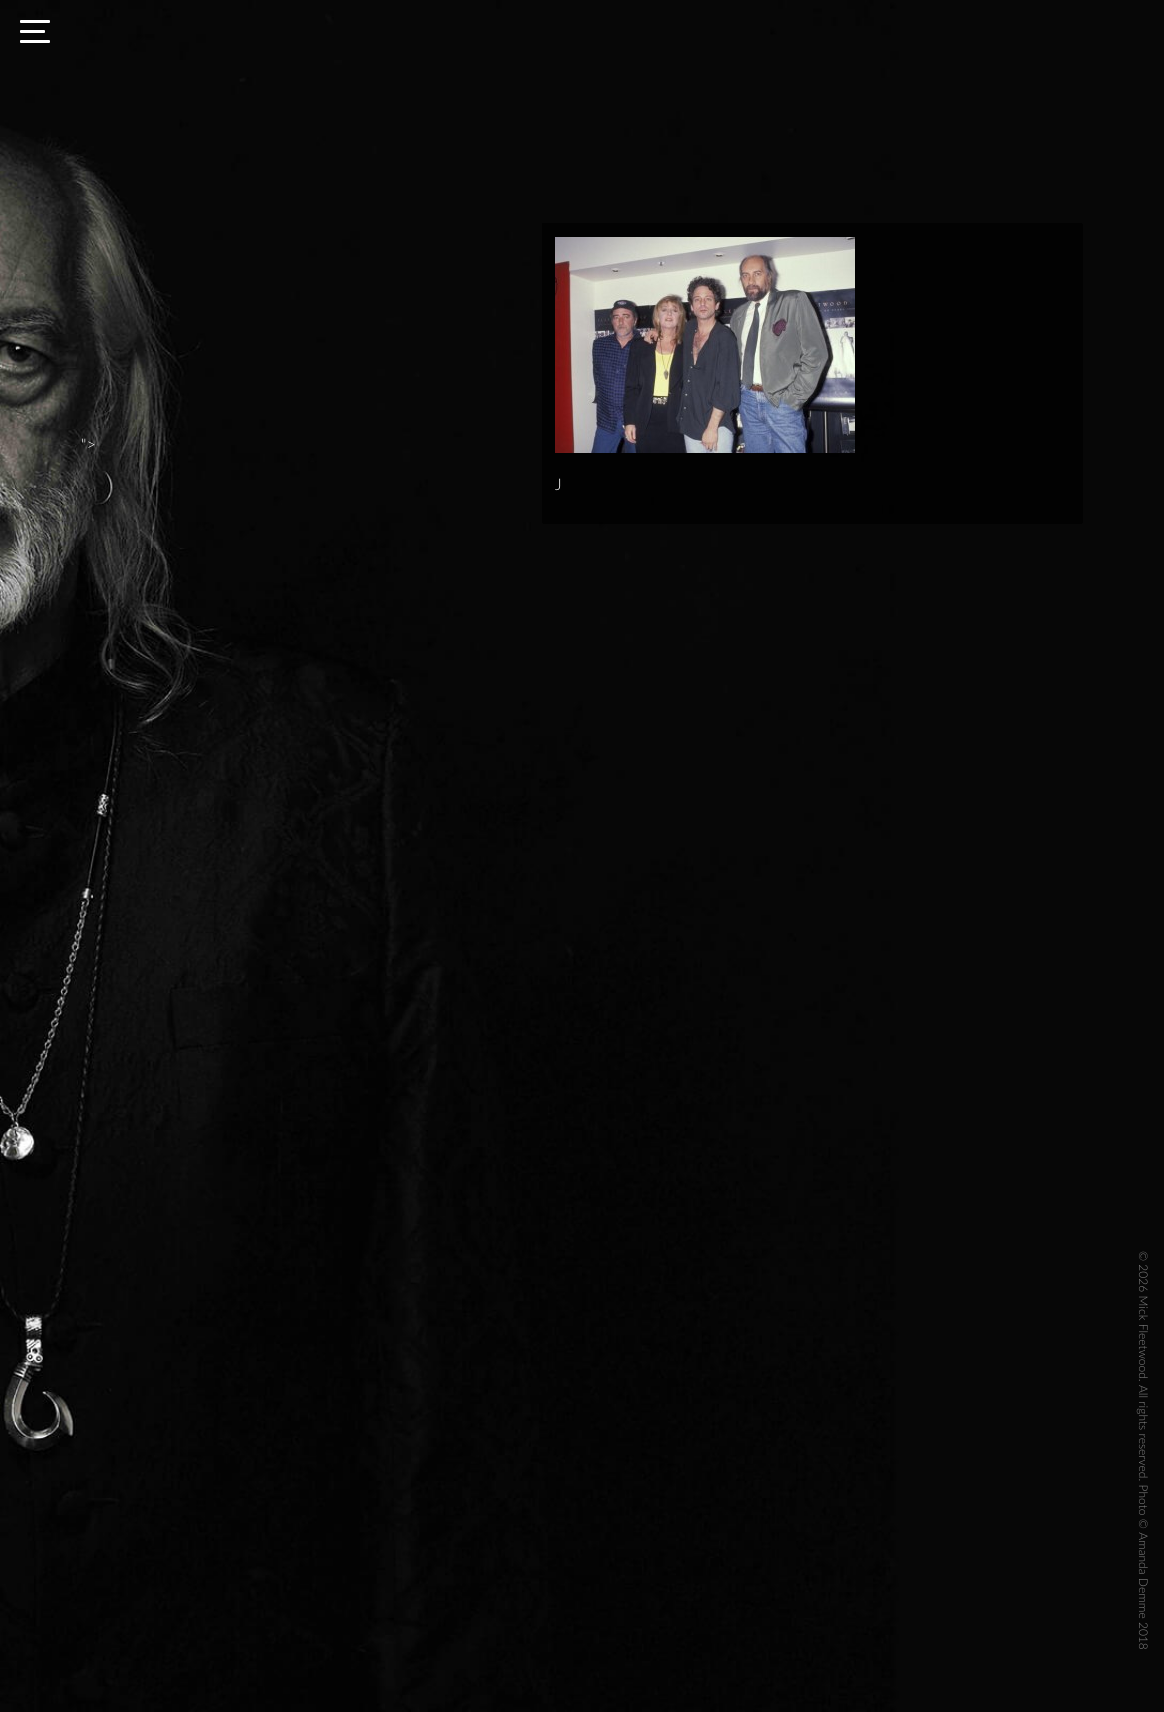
#include <cairo.h>
#include <math.h>
#include <stddef.h>


static void round_rect(cairo_t *cr, double x, double y, double w, double h, double r) {
    cairo_new_sub_path(cr);
    cairo_arc(cr, x + w - r, y + h - r, r, 0, M_PI / 2);
    cairo_arc(cr, x + r, y + h - r, r, M_PI / 2, M_PI);
    cairo_arc(cr, x + r, y + r, r, M_PI, 1.5 * M_PI);
    cairo_arc(cr, x + w - r, y + r, r, 1.5 * M_PI, 2 * M_PI);
    cairo_close_path(cr);
}

static void picture(cairo_t *cr, const char *path, double x, double y, double w, double h) {
    cairo_surface_t *image = cairo_image_surface_create_from_png(path);
    cairo_save(cr);
    cairo_set_source_surface(cr, image, x, y);
    cairo_rectangle(cr, x, y, w, h);
    cairo_fill(cr);
    cairo_restore(cr);
    cairo_surface_destroy(image);
}

int main(void) {
    cairo_surface_t *surface = cairo_image_surface_create(CAIRO_FORMAT_RGB24, 1164, 1712);
    cairo_t *cr = cairo_create(surface);
    cairo_font_options_t *options = cairo_font_options_create();
    cairo_font_options_set_hint_metrics(options, CAIRO_HINT_METRICS_OFF);
    cairo_font_options_set_hint_style(options, CAIRO_HINT_STYLE_NONE);
    cairo_set_font_options(cr, options);
    cairo_set_miter_limit(cr, 4);
    cairo_set_source_rgb(cr, 1, 1, 1);
    cairo_paint(cr);
    picture(cr, "img1.png", 0, 0, 1164, 1712);
    cairo_set_source_rgb(cr, 1, 1, 1);
    round_rect(cr, 20, 20, 30, 3, 1);
    cairo_fill(cr);
    round_rect(cr, 20, 30, 25, 3, 1);
    cairo_fill(cr);
    round_rect(cr, 20, 40, 30, 3, 1);
    cairo_fill(cr);
    cairo_select_font_face(cr, "Lato Light", CAIRO_FONT_SLANT_NORMAL, CAIRO_FONT_WEIGHT_NORMAL);
    cairo_set_font_size(cr, 16);
    cairo_move_to(cr, 81, 450);
    cairo_show_text(cr, "\">");
    cairo_set_source_rgba(cr, 0, 0, 0, 0.75);
    cairo_new_path(cr);
    cairo_move_to(cr, 542, 223);
    cairo_line_to(cr, 1081, 223);
    cairo_curve_to(cr, 1082, 223, 1083, 224, 1083, 225);
    cairo_line_to(cr, 1083, 522);
    cairo_curve_to(cr, 1083, 523, 1082, 524, 1081, 524);
    cairo_line_to(cr, 544, 524);
    cairo_curve_to(cr, 543, 524, 542, 523, 542, 522);
    cairo_close_path(cr);
    cairo_fill(cr);
    picture(cr, "img2.png", 555, 237, 300, 216);
    cairo_set_source_rgb(cr, 1, 1, 1);
    cairo_move_to(cr, 555, 490);
    cairo_show_text(cr, "J");
    cairo_set_font_size(cr, 12);
    cairo_set_source_rgb(cr, 0.514, 0.514, 0.514);
    cairo_save(cr);
    cairo_translate(cr, 1139, 1251);
    cairo_rotate(cr, 90 * M_PI / 180);
    cairo_move_to(cr, 0, 0);
    cairo_show_text(cr, "© 2026 Mick Fleetwood. All rights reserved. Photo © Amanda Demme 2018");
    cairo_restore(cr);
    cairo_surface_write_to_png(surface, "page.png");
    cairo_font_options_destroy(options);
    cairo_destroy(cr);
    cairo_surface_destroy(surface);
    return 0;
}
